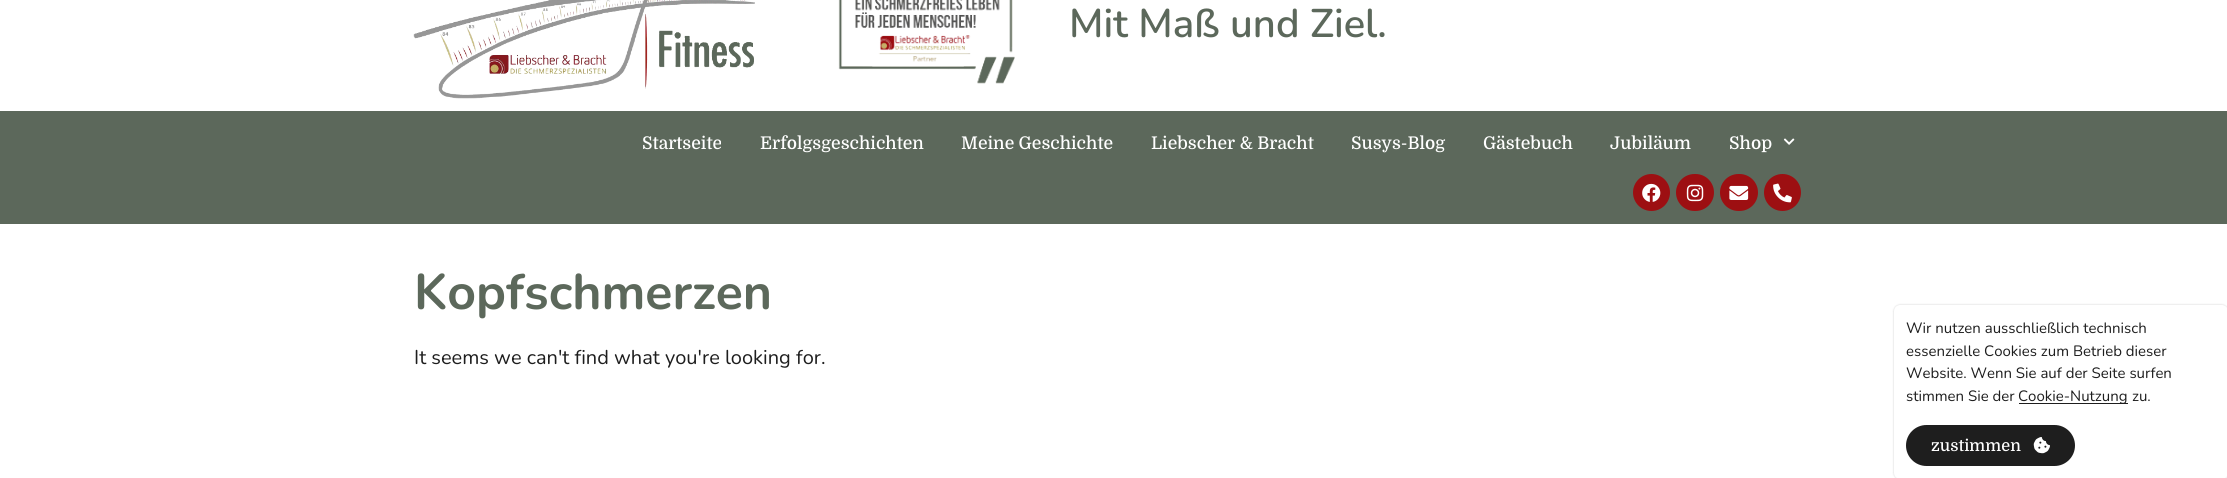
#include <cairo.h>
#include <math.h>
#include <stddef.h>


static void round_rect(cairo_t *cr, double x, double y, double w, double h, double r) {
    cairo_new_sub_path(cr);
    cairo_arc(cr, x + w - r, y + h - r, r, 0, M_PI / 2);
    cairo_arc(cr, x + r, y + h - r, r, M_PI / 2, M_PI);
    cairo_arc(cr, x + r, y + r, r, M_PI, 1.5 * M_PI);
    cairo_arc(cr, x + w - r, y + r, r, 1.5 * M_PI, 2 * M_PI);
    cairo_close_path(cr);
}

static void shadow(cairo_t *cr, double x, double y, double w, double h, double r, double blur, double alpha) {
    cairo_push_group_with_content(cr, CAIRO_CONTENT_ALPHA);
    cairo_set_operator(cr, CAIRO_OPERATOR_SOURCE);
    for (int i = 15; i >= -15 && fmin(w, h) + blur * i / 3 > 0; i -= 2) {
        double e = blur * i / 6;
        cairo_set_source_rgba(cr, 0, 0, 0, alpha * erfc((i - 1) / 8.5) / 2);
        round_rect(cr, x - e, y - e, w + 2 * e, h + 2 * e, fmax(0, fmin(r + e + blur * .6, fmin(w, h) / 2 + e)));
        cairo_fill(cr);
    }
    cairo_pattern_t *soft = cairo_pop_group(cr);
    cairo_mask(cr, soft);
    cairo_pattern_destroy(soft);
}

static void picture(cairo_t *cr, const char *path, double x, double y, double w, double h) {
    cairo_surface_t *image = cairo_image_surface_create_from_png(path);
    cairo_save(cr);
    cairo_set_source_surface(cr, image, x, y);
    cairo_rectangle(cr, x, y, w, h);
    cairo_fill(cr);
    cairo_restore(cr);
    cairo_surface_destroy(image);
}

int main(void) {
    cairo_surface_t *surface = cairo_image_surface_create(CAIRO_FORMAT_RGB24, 2227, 478);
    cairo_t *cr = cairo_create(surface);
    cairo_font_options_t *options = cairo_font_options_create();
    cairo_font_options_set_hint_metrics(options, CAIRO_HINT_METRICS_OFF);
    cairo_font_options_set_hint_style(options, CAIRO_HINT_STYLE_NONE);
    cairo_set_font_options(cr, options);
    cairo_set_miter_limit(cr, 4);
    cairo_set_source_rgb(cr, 1, 1, 1);
    cairo_paint(cr);
    picture(cr, "img1.png", 413, 0, 342, 99);
    picture(cr, "img2.png", 838, 0, 177, 84);
    cairo_select_font_face(cr, "Nunito ExtraLight", CAIRO_FONT_SLANT_NORMAL, CAIRO_FONT_WEIGHT_NORMAL);
    cairo_set_font_size(cr, 40);
    cairo_set_source_rgb(cr, 0.361, 0.408, 0.357);
    cairo_move_to(cr, 1069, 37);
    cairo_show_text(cr, "Mit Maß und Ziel.");
    cairo_rectangle(cr, 0, 111, 2227, 113);
    cairo_fill(cr);
    cairo_select_font_face(cr, "Domine Medium", CAIRO_FONT_SLANT_NORMAL, CAIRO_FONT_WEIGHT_NORMAL);
    cairo_set_font_size(cr, 17.5);
    cairo_set_source_rgb(cr, 1, 1, 1);
    cairo_move_to(cr, 642, 149);
    cairo_show_text(cr, "Startseite");
    cairo_move_to(cr, 760, 149);
    cairo_show_text(cr, "Erfolgsgeschichten");
    cairo_move_to(cr, 961, 149);
    cairo_show_text(cr, "Meine Geschichte");
    cairo_move_to(cr, 1151, 149);
    cairo_show_text(cr, "Liebscher & Bracht");
    cairo_move_to(cr, 1351, 149);
    cairo_show_text(cr, "Susys-Blog");
    cairo_move_to(cr, 1483, 149);
    cairo_show_text(cr, "Gästebuch");
    cairo_move_to(cr, 1610, 149);
    cairo_show_text(cr, "Jubiläum");
    cairo_move_to(cr, 1729, 149);
    cairo_show_text(cr, "Shop");
    picture(cr, "img3.png", 1783, 138, 12, 7);
    cairo_set_source_rgb(cr, 0.616, 0.059, 0.071);
    cairo_arc(cr, 1651.5, 192.5, 18.5, 0, 2 * M_PI);
    cairo_fill(cr);
    picture(cr, "img4.png", 1642, 183, 19, 19);
    round_rect(cr, 1676, 174, 38, 37, 18.5);
    cairo_fill(cr);
    picture(cr, "img5.png", 1686, 184, 18, 18);
    round_rect(cr, 1720, 174, 38, 37, 18.5);
    cairo_fill(cr);
    picture(cr, "img6.png", 1729, 185, 20, 15);
    cairo_arc(cr, 1782.5, 192.5, 18.5, 0, 2 * M_PI);
    cairo_fill(cr);
    picture(cr, "img7.png", 1773, 183, 19, 20);
    cairo_select_font_face(cr, "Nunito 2 ExtraLight", CAIRO_FONT_SLANT_NORMAL, CAIRO_FONT_WEIGHT_NORMAL);
    cairo_set_font_size(cr, 50);
    cairo_set_source_rgb(cr, 0.361, 0.408, 0.357);
    cairo_move_to(cr, 414, 309);
    cairo_show_text(cr, "Kopfschmerzen");
    cairo_select_font_face(cr, "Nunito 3 ExtraLight", CAIRO_FONT_SLANT_NORMAL, CAIRO_FONT_WEIGHT_NORMAL);
    cairo_set_font_size(cr, 20);
    cairo_set_source_rgb(cr, 0.118, 0.118, 0.118);
    cairo_move_to(cr, 414, 364);
    cairo_show_text(cr, "It seems we can't find what you're looking for.");
    cairo_set_source_rgb(cr, 0, 0, 0);
    shadow(cr, 1894, 305, 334, 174, 6, 1, 0.2);
    cairo_set_source_rgb(cr, 1, 1, 1);
    round_rect(cr, 1894, 305, 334, 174, 6);
    cairo_fill(cr);
    cairo_set_font_size(cr, 15);
    cairo_set_source_rgb(cr, 0.118, 0.118, 0.118);
    cairo_move_to(cr, 1906, 333);
    cairo_show_text(cr, "Wir nutzen ausschließlich technisch");
    cairo_move_to(cr, 1906, 356);
    cairo_show_text(cr, "essenzielle Cookies zum Betrieb dieser");
    cairo_move_to(cr, 1906, 378);
    cairo_show_text(cr, "Website. Wenn Sie auf der Seite surfen");
    cairo_move_to(cr, 1906, 401);
    cairo_show_text(cr, "stimmen Sie der");
    cairo_rectangle(cr, 2019, 403, 109, 1);
    cairo_fill(cr);
    cairo_move_to(cr, 2018, 401);
    cairo_show_text(cr, "Cookie-Nutzung");
    cairo_move_to(cr, 2132, 401);
    cairo_show_text(cr, "zu.");
    round_rect(cr, 1906, 425, 169, 41, 20.5);
    cairo_fill(cr);
    cairo_select_font_face(cr, "Domine Medium", CAIRO_FONT_SLANT_NORMAL, CAIRO_FONT_WEIGHT_NORMAL);
    cairo_set_font_size(cr, 16.25);
    cairo_set_source_rgb(cr, 1, 1, 1);
    cairo_move_to(cr, 1931, 451);
    cairo_show_text(cr, "zustimmen");
    picture(cr, "img8.png", 2033, 437, 17, 17);
    cairo_surface_write_to_png(surface, "page.png");
    cairo_font_options_destroy(options);
    cairo_destroy(cr);
    cairo_surface_destroy(surface);
    return 0;
}
